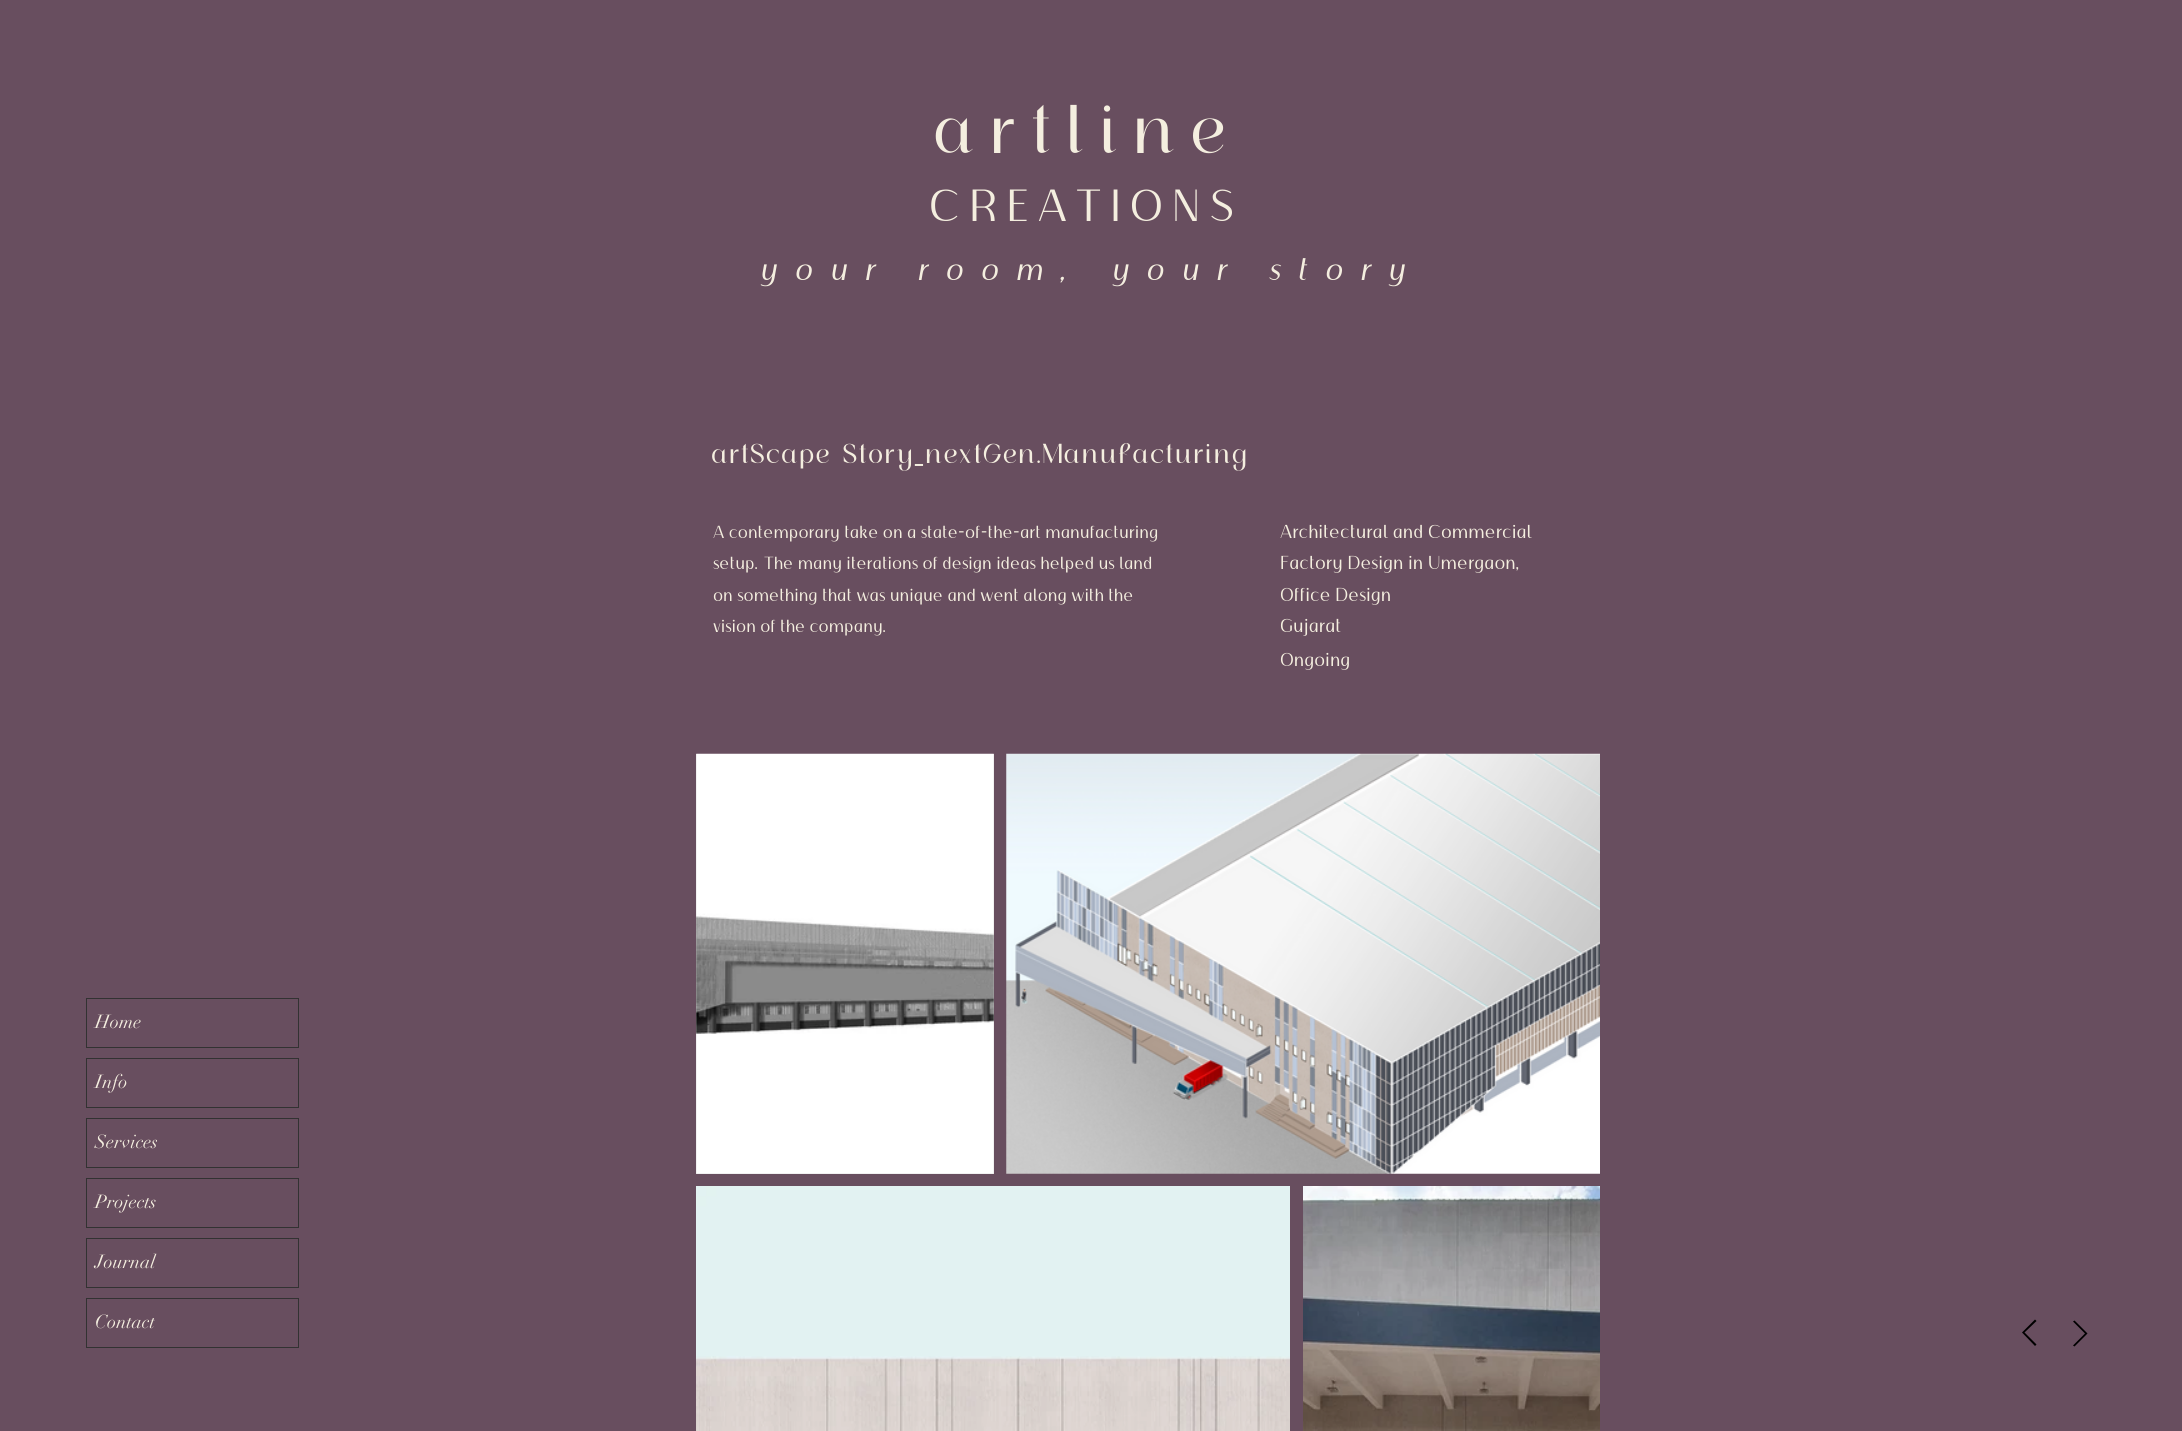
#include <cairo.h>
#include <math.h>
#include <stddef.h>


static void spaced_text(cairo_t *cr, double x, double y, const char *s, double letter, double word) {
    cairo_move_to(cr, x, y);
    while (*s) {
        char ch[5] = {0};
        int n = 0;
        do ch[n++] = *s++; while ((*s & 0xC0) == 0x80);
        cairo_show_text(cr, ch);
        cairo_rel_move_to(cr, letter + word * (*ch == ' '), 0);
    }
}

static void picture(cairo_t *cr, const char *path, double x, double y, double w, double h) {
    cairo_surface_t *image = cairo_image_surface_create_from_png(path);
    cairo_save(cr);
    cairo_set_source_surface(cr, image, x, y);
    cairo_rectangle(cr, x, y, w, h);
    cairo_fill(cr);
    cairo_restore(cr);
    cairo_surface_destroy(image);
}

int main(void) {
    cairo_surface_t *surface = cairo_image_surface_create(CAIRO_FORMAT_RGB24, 2182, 1431);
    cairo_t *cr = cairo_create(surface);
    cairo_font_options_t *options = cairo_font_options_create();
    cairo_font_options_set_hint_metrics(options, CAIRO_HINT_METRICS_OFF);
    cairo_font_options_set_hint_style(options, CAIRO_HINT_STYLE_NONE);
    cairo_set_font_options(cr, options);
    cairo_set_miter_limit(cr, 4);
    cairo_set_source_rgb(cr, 0.408, 0.306, 0.373);
    cairo_paint(cr);
    cairo_select_font_face(cr, "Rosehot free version", CAIRO_FONT_SLANT_NORMAL, CAIRO_FONT_WEIGHT_NORMAL);
    cairo_set_font_size(cr, 68.75);
    cairo_set_source_rgb(cr, 0.957, 0.933, 0.875);
    spaced_text(cr, 933, 153, "artline", 13.75, 0);
    cairo_select_font_face(cr, "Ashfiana", CAIRO_FONT_SLANT_NORMAL, CAIRO_FONT_WEIGHT_NORMAL);
    cairo_set_font_size(cr, 45);
    spaced_text(cr, 929, 221, "CREATIONS", 9, 0);
    cairo_select_font_face(cr, "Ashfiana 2", CAIRO_FONT_SLANT_NORMAL, CAIRO_FONT_WEIGHT_NORMAL);
    cairo_set_font_size(cr, 31.25);
    spaced_text(cr, 759, 280, "your room, your story", 17.2, 0);
    cairo_select_font_face(cr, "Rosehot free version", CAIRO_FONT_SLANT_NORMAL, CAIRO_FONT_WEIGHT_NORMAL);
    cairo_set_font_size(cr, 27.5);
    spaced_text(cr, 711, 463, "artScape Story_nextGen.Manufacturing", 0.85, 0);
    cairo_select_font_face(cr, "Ashfiana", CAIRO_FONT_SLANT_NORMAL, CAIRO_FONT_WEIGHT_NORMAL);
    cairo_set_font_size(cr, 17.5);
    cairo_move_to(cr, 713, 538);
    cairo_show_text(cr, "A contemporary take on a state-of-the-art manufacturing");
    cairo_move_to(cr, 713, 569);
    cairo_show_text(cr, "setup. The many iterations of design ideas helped us land");
    cairo_move_to(cr, 713, 601);
    cairo_show_text(cr, "on something that was unique and went along with the");
    cairo_move_to(cr, 713, 632);
    cairo_show_text(cr, "vision of the company.");
    cairo_set_font_size(cr, 18.75);
    cairo_move_to(cr, 1280, 538);
    cairo_show_text(cr, "Architectural and Commercial");
    cairo_move_to(cr, 1280, 569);
    cairo_show_text(cr, "Factory Design in Umergaon,");
    cairo_move_to(cr, 1280, 601);
    cairo_show_text(cr, "Office Design");
    cairo_move_to(cr, 1280, 632);
    cairo_show_text(cr, "Gujarat");
    cairo_move_to(cr, 1280, 666);
    cairo_show_text(cr, "Ongoing");
    cairo_set_source_rgb(cr, 0.78, 0.78, 0.78);
    cairo_rectangle(cr, 696, 754, 298, 420);
    cairo_fill(cr);
    picture(cr, "img1.png", 696, 753, 298, 421);
    picture(cr, "img2.png", 1006, 753, 594, 421);
    picture(cr, "img3.png", 696, 1186, 594, 245);
    picture(cr, "img4.png", 1303, 1186, 297, 245);
    cairo_set_source_rgb(cr, 0, 0, 0);
    cairo_new_path(cr);
    cairo_move_to(cr, 2035, 1346);
    cairo_line_to(cr, 2036.5, 1344.5);
    cairo_line_to(cr, 2024.5, 1332.5);
    cairo_line_to(cr, 2036.5, 1321);
    cairo_line_to(cr, 2035, 1319.5);
    cairo_line_to(cr, 2022, 1332.5);
    cairo_close_path(cr);
    cairo_fill(cr);
    cairo_new_path(cr);
    cairo_move_to(cr, 2074.5, 1320.5);
    cairo_line_to(cr, 2073, 1321.5);
    cairo_line_to(cr, 2085, 1333.5);
    cairo_line_to(cr, 2073, 1345.5);
    cairo_line_to(cr, 2074.5, 1346.5);
    cairo_line_to(cr, 2087.5, 1333.5);
    cairo_close_path(cr);
    cairo_fill(cr);
    cairo_rectangle(cr, 86.5, 998.5, 212, 49);
    cairo_set_source_rgb(cr, 0.196, 0.196, 0.196);
    cairo_set_line_width(cr, 1);
    cairo_stroke(cr);
    cairo_select_font_face(cr, "didot", CAIRO_FONT_SLANT_NORMAL, CAIRO_FONT_WEIGHT_NORMAL);
    cairo_set_source_rgb(cr, 0.957, 0.933, 0.875);
    cairo_move_to(cr, 95, 1028);
    cairo_show_text(cr, "Home");
    cairo_rectangle(cr, 86.5, 1058.5, 212, 49);
    cairo_set_source_rgb(cr, 0.196, 0.196, 0.196);
    cairo_stroke(cr);
    cairo_set_source_rgb(cr, 0.957, 0.933, 0.875);
    cairo_move_to(cr, 95, 1088);
    cairo_show_text(cr, "Info");
    cairo_rectangle(cr, 86.5, 1118.5, 212, 49);
    cairo_set_source_rgb(cr, 0.196, 0.196, 0.196);
    cairo_stroke(cr);
    cairo_set_source_rgb(cr, 0.957, 0.933, 0.875);
    cairo_move_to(cr, 95, 1148);
    cairo_show_text(cr, "Services");
    cairo_rectangle(cr, 86.5, 1178.5, 212, 49);
    cairo_set_source_rgb(cr, 0.196, 0.196, 0.196);
    cairo_stroke(cr);
    cairo_set_source_rgb(cr, 0.957, 0.933, 0.875);
    cairo_move_to(cr, 95, 1208);
    cairo_show_text(cr, "Projects");
    cairo_rectangle(cr, 86.5, 1238.5, 212, 49);
    cairo_set_source_rgb(cr, 0.196, 0.196, 0.196);
    cairo_stroke(cr);
    cairo_set_source_rgb(cr, 0.957, 0.933, 0.875);
    cairo_move_to(cr, 95, 1268);
    cairo_show_text(cr, "Journal");
    cairo_rectangle(cr, 86.5, 1298.5, 212, 49);
    cairo_set_source_rgb(cr, 0.196, 0.196, 0.196);
    cairo_stroke(cr);
    cairo_set_source_rgb(cr, 0.957, 0.933, 0.875);
    cairo_move_to(cr, 95, 1328);
    cairo_show_text(cr, "Contact");
    cairo_surface_write_to_png(surface, "page.png");
    cairo_font_options_destroy(options);
    cairo_destroy(cr);
    cairo_surface_destroy(surface);
    return 0;
}
